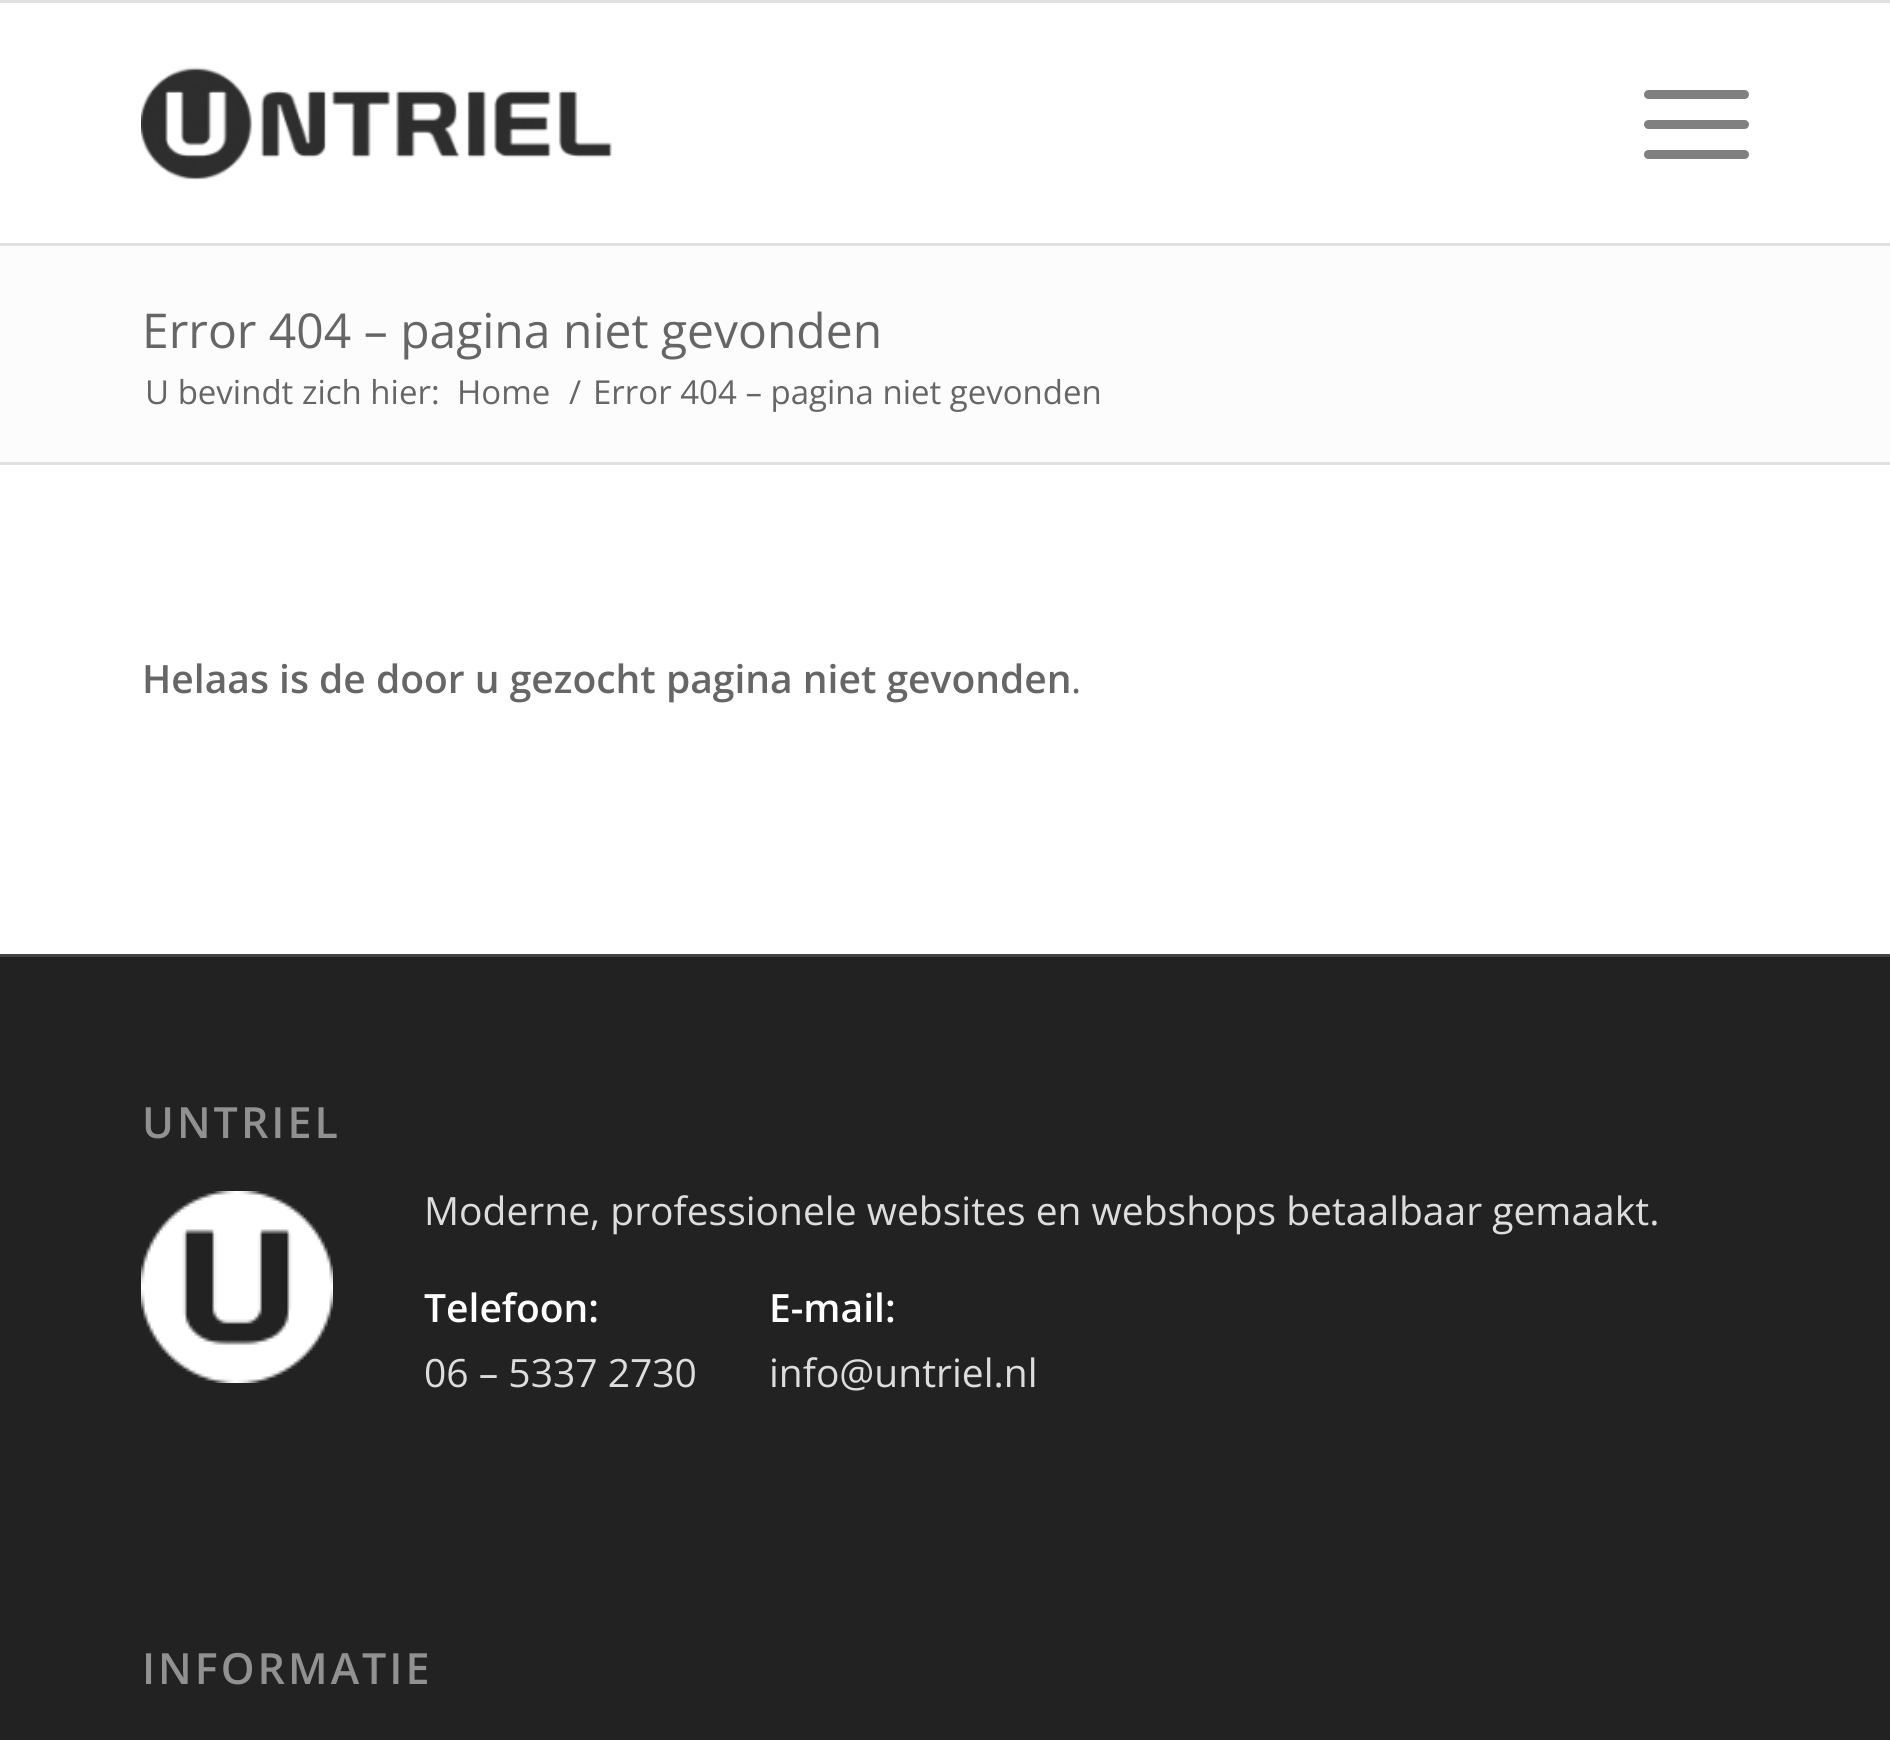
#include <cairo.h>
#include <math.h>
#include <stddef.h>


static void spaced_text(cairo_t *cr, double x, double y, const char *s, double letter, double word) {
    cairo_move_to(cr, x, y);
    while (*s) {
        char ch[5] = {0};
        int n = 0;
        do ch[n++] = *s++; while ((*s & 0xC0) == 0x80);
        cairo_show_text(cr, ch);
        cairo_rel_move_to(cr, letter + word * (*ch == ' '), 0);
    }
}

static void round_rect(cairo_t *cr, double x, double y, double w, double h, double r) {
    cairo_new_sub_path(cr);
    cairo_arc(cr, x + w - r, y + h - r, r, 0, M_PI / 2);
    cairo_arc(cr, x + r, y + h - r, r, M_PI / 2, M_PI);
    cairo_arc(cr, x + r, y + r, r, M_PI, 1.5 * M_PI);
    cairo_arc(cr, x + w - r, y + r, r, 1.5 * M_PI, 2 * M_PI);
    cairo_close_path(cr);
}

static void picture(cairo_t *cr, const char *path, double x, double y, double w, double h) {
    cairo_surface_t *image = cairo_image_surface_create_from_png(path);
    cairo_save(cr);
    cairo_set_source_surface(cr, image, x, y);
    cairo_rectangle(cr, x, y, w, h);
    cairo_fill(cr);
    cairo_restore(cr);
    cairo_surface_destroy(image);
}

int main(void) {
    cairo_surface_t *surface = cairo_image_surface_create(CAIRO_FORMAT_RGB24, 1890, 1740);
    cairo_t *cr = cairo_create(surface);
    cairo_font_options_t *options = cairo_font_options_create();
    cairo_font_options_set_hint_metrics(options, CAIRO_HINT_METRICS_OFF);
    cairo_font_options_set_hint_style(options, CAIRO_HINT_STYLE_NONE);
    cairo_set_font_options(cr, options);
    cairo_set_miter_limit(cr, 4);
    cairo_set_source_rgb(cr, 1, 1, 1);
    cairo_paint(cr);
    cairo_set_source_rgb(cr, 0.882, 0.882, 0.882);
    cairo_rectangle(cr, 0, 0, 1890, 3);
    cairo_fill(cr);
    cairo_rectangle(cr, 0, 243, 1890, 3);
    cairo_fill(cr);
    picture(cr, "img1.png", 141, 67, 472, 113);
    cairo_set_source_rgb(cr, 0.502, 0.502, 0.502);
    round_rect(cr, 1644, 120, 105, 9, 4.5);
    cairo_fill(cr);
    round_rect(cr, 1644, 90, 105, 9, 4.5);
    cairo_fill(cr);
    round_rect(cr, 1644, 150, 105, 9, 4.5);
    cairo_fill(cr);
    cairo_set_source_rgb(cr, 0.988, 0.988, 0.988);
    cairo_rectangle(cr, 0, 246, 1890, 216);
    cairo_fill(cr);
    cairo_select_font_face(cr, "Open Sans", CAIRO_FONT_SLANT_NORMAL, CAIRO_FONT_WEIGHT_NORMAL);
    cairo_set_font_size(cr, 48);
    cairo_set_source_rgb(cr, 0.4, 0.4, 0.4);
    cairo_move_to(cr, 142, 348);
    cairo_show_text(cr, "Error 404 – pagina niet gevonden");
    cairo_set_font_size(cr, 33);
    cairo_move_to(cr, 145, 404);
    cairo_show_text(cr, "U bevindt zich hier:");
    cairo_move_to(cr, 457, 404);
    cairo_show_text(cr, "Home");
    cairo_move_to(cr, 569, 404);
    cairo_show_text(cr, "/");
    cairo_move_to(cr, 593, 404);
    cairo_show_text(cr, "Error 404 – pagina niet gevonden");
    cairo_set_source_rgb(cr, 0.882, 0.882, 0.882);
    cairo_rectangle(cr, 0, 462, 1890, 3);
    cairo_fill(cr);
    cairo_select_font_face(cr, "Open Sans SemiBold", CAIRO_FONT_SLANT_NORMAL, CAIRO_FONT_WEIGHT_NORMAL);
    cairo_set_font_size(cr, 39);
    cairo_set_source_rgb(cr, 0.4, 0.4, 0.4);
    cairo_move_to(cr, 142, 693);
    cairo_show_text(cr, "Helaas is de door u gezocht pagina niet gevonden");
    cairo_select_font_face(cr, "Open Sans", CAIRO_FONT_SLANT_NORMAL, CAIRO_FONT_WEIGHT_NORMAL);
    cairo_move_to(cr, 1071, 693);
    cairo_show_text(cr, ".");
    cairo_set_source_rgb(cr, 0.133, 0.133, 0.133);
    cairo_rectangle(cr, 0, 957, 1890, 783);
    cairo_fill(cr);
    cairo_set_source_rgb(cr, 0.267, 0.267, 0.267);
    cairo_rectangle(cr, 0, 954, 1890, 3);
    cairo_fill(cr);
    cairo_select_font_face(cr, "Open Sans SemiBold", CAIRO_FONT_SLANT_NORMAL, CAIRO_FONT_WEIGHT_NORMAL);
    cairo_set_font_size(cr, 43);
    cairo_set_source_rgb(cr, 0.569, 0.569, 0.569);
    spaced_text(cr, 142, 1138, "UNTRIEL", 3, 0);
    picture(cr, "img2.png", 141, 1191, 192, 192);
    cairo_select_font_face(cr, "Open Sans", CAIRO_FONT_SLANT_NORMAL, CAIRO_FONT_WEIGHT_NORMAL);
    cairo_set_font_size(cr, 39);
    cairo_set_source_rgb(cr, 0.867, 0.867, 0.867);
    cairo_move_to(cr, 424, 1225);
    cairo_show_text(cr, "Moderne, professionele websites en webshops betaalbaar gemaakt.");
    cairo_select_font_face(cr, "Open Sans SemiBold", CAIRO_FONT_SLANT_NORMAL, CAIRO_FONT_WEIGHT_NORMAL);
    cairo_set_source_rgb(cr, 1, 1, 1);
    cairo_move_to(cr, 424, 1322);
    cairo_show_text(cr, "Telefoon:");
    cairo_select_font_face(cr, "Open Sans", CAIRO_FONT_SLANT_NORMAL, CAIRO_FONT_WEIGHT_NORMAL);
    cairo_set_source_rgb(cr, 0.867, 0.867, 0.867);
    cairo_move_to(cr, 424, 1387);
    cairo_show_text(cr, "06 – 5337 2730");
    cairo_select_font_face(cr, "Open Sans SemiBold", CAIRO_FONT_SLANT_NORMAL, CAIRO_FONT_WEIGHT_NORMAL);
    cairo_set_source_rgb(cr, 1, 1, 1);
    cairo_move_to(cr, 769, 1322);
    cairo_show_text(cr, "E-mail:");
    cairo_select_font_face(cr, "Open Sans", CAIRO_FONT_SLANT_NORMAL, CAIRO_FONT_WEIGHT_NORMAL);
    cairo_set_source_rgb(cr, 0.867, 0.867, 0.867);
    cairo_move_to(cr, 769, 1387);
    cairo_show_text(cr, "info@untriel.nl");
    cairo_select_font_face(cr, "Open Sans SemiBold", CAIRO_FONT_SLANT_NORMAL, CAIRO_FONT_WEIGHT_NORMAL);
    cairo_set_font_size(cr, 43);
    cairo_set_source_rgb(cr, 0.569, 0.569, 0.569);
    spaced_text(cr, 142, 1684, "INFORMATIE", 3, 0);
    cairo_surface_write_to_png(surface, "page.png");
    cairo_font_options_destroy(options);
    cairo_destroy(cr);
    cairo_surface_destroy(surface);
    return 0;
}
